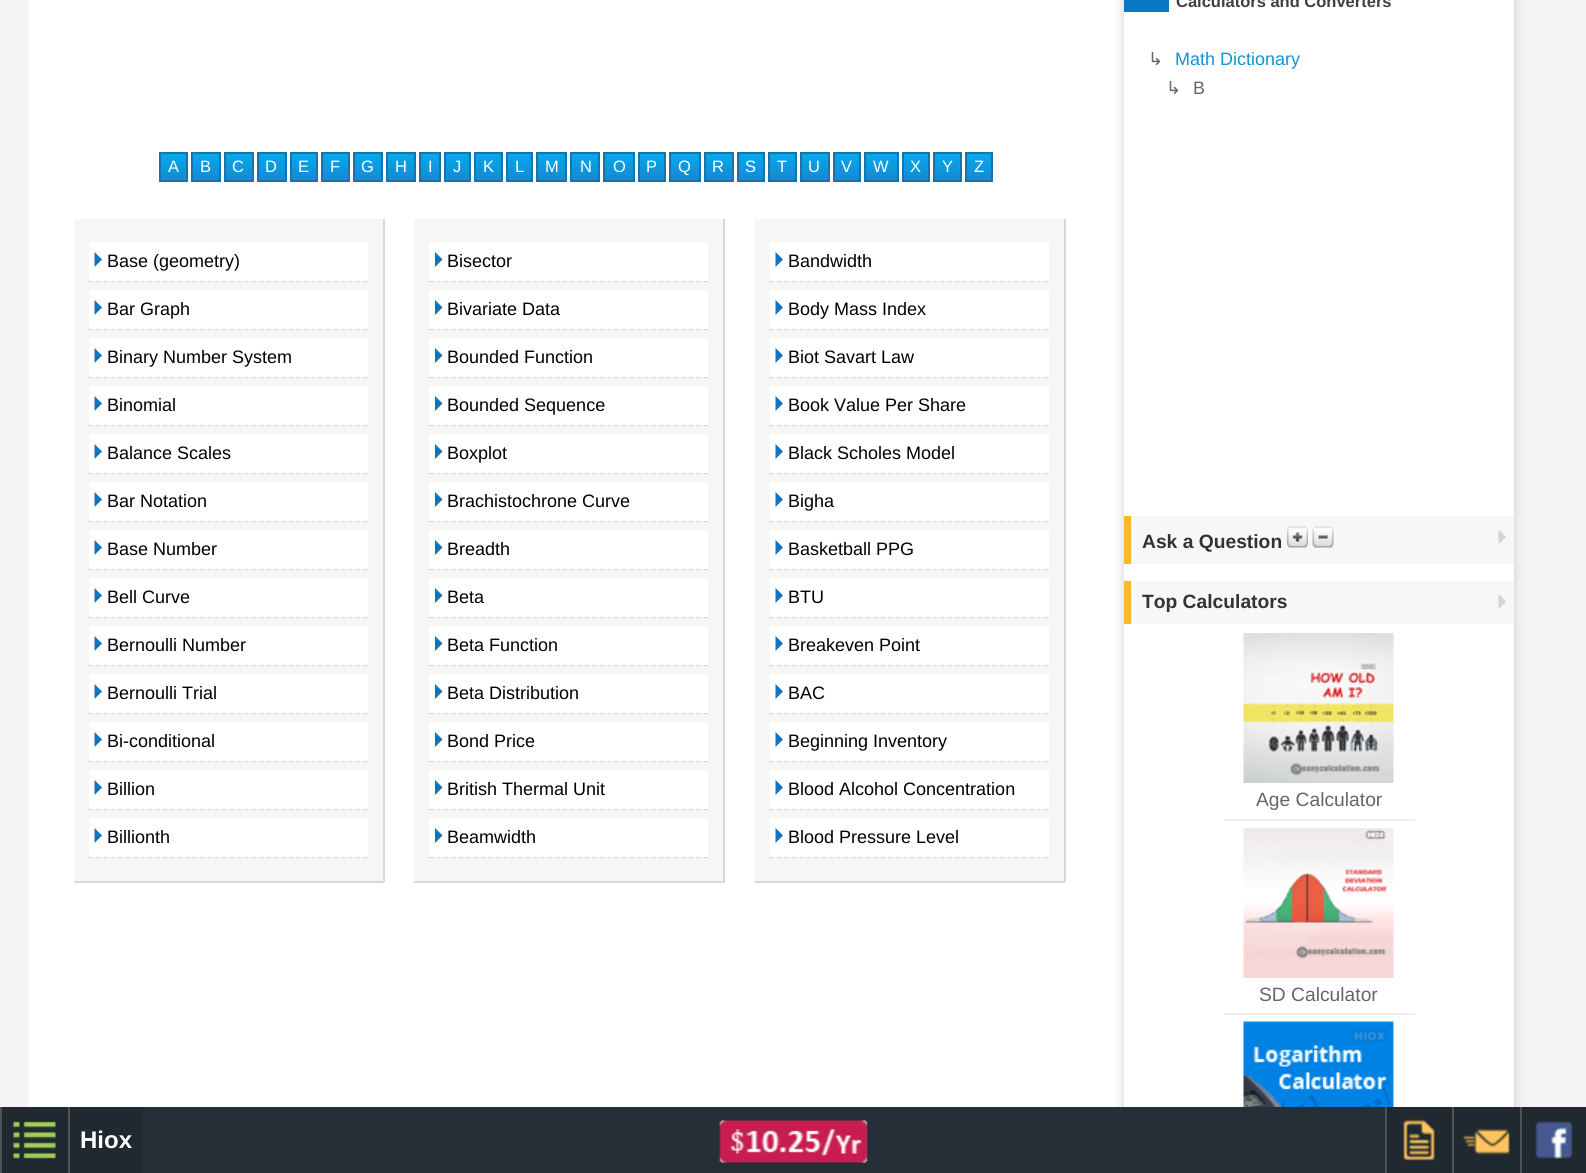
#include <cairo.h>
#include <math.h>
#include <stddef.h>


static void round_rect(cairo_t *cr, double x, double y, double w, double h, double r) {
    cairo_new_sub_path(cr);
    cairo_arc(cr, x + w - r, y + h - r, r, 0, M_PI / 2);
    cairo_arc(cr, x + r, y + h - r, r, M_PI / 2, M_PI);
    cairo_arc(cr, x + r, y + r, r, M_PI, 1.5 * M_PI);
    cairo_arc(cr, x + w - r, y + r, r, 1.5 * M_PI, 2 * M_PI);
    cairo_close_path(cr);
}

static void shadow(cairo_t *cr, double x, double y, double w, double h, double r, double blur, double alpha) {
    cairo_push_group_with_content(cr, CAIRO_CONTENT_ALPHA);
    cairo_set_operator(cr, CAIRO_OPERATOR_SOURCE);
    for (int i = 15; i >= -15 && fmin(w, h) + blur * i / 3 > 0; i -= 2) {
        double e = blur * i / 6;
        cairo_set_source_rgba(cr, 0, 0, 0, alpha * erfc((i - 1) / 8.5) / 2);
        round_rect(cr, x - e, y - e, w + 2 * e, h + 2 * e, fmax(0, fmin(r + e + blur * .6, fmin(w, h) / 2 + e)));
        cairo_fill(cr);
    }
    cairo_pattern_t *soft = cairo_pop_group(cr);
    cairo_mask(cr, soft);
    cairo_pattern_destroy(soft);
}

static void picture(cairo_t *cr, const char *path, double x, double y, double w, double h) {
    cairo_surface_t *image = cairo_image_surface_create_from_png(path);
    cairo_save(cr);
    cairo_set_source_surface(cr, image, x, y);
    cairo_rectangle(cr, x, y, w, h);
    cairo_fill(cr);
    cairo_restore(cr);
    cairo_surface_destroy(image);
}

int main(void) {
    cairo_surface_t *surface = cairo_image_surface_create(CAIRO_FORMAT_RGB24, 1586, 1173);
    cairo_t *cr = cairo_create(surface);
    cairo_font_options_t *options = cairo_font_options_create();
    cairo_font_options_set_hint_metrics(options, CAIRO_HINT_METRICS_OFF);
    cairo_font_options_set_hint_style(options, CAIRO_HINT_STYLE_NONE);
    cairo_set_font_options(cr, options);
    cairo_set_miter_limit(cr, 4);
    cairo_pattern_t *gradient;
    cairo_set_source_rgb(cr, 0.961, 0.953, 0.961);
    cairo_paint(cr);
    cairo_set_source_rgb(cr, 1, 1, 1);
    cairo_rectangle(cr, 29, 0, 1095, 1107);
    cairo_fill(cr);
    gradient = cairo_pattern_create_linear(173, 153, 173, 180);
    cairo_pattern_add_color_stop_rgba(gradient, 0, 0.008, 0.667, 0.933, 1);
    cairo_pattern_add_color_stop_rgba(gradient, 1, 0.09, 0.537, 0.82, 1);
    cairo_set_source(cr, gradient);
    cairo_pattern_destroy(gradient);
    cairo_rectangle(cr, 161, 154, 25, 26);
    cairo_fill(cr);
    cairo_rectangle(cr, 160, 153, 27, 28);
    cairo_set_source_rgb(cr, 0.086, 0.455, 0.678);
    cairo_stroke(cr);
    cairo_select_font_face(cr, "Liberation Sans", CAIRO_FONT_SLANT_NORMAL, CAIRO_FONT_WEIGHT_NORMAL);
    cairo_set_font_size(cr, 16.5);
    cairo_set_source_rgb(cr, 1, 1, 1);
    cairo_move_to(cr, 168, 172);
    cairo_show_text(cr, "A");
    gradient = cairo_pattern_create_linear(206, 153, 206, 180);
    cairo_pattern_add_color_stop_rgba(gradient, 0, 0.008, 0.667, 0.933, 1);
    cairo_pattern_add_color_stop_rgba(gradient, 1, 0.09, 0.537, 0.82, 1);
    cairo_set_source(cr, gradient);
    cairo_pattern_destroy(gradient);
    cairo_rectangle(cr, 193, 154, 26, 26);
    cairo_fill(cr);
    cairo_rectangle(cr, 192, 153, 28, 28);
    cairo_set_source_rgb(cr, 0.086, 0.455, 0.678);
    cairo_stroke(cr);
    cairo_set_source_rgb(cr, 1, 1, 1);
    cairo_move_to(cr, 200, 172);
    cairo_show_text(cr, "B");
    gradient = cairo_pattern_create_linear(239, 153, 239, 180);
    cairo_pattern_add_color_stop_rgba(gradient, 0, 0.008, 0.667, 0.933, 1);
    cairo_pattern_add_color_stop_rgba(gradient, 1, 0.09, 0.537, 0.82, 1);
    cairo_set_source(cr, gradient);
    cairo_pattern_destroy(gradient);
    cairo_rectangle(cr, 226, 154, 26, 26);
    cairo_fill(cr);
    cairo_rectangle(cr, 225, 153, 28, 28);
    cairo_set_source_rgb(cr, 0.086, 0.455, 0.678);
    cairo_stroke(cr);
    cairo_set_source_rgb(cr, 1, 1, 1);
    cairo_move_to(cr, 232, 172);
    cairo_show_text(cr, "C");
    gradient = cairo_pattern_create_linear(272, 153, 272, 180);
    cairo_pattern_add_color_stop_rgba(gradient, 0, 0.008, 0.667, 0.933, 1);
    cairo_pattern_add_color_stop_rgba(gradient, 1, 0.09, 0.537, 0.82, 1);
    cairo_set_source(cr, gradient);
    cairo_pattern_destroy(gradient);
    cairo_rectangle(cr, 259, 154, 26, 26);
    cairo_fill(cr);
    cairo_rectangle(cr, 258, 153, 28, 28);
    cairo_set_source_rgb(cr, 0.086, 0.455, 0.678);
    cairo_stroke(cr);
    cairo_set_source_rgb(cr, 1, 1, 1);
    cairo_move_to(cr, 265, 172);
    cairo_show_text(cr, "D");
    gradient = cairo_pattern_create_linear(304, 153, 304, 180);
    cairo_pattern_add_color_stop_rgba(gradient, 0, 0.008, 0.667, 0.933, 1);
    cairo_pattern_add_color_stop_rgba(gradient, 1, 0.09, 0.537, 0.82, 1);
    cairo_set_source(cr, gradient);
    cairo_pattern_destroy(gradient);
    cairo_rectangle(cr, 292, 154, 24, 26);
    cairo_fill(cr);
    cairo_rectangle(cr, 291, 153, 26, 28);
    cairo_set_source_rgb(cr, 0.086, 0.455, 0.678);
    cairo_stroke(cr);
    cairo_set_source_rgb(cr, 1, 1, 1);
    cairo_move_to(cr, 298, 172);
    cairo_show_text(cr, "E");
    gradient = cairo_pattern_create_linear(335, 153, 335, 180);
    cairo_pattern_add_color_stop_rgba(gradient, 0, 0.008, 0.667, 0.933, 1);
    cairo_pattern_add_color_stop_rgba(gradient, 1, 0.09, 0.537, 0.82, 1);
    cairo_set_source(cr, gradient);
    cairo_pattern_destroy(gradient);
    cairo_rectangle(cr, 323, 154, 25, 26);
    cairo_fill(cr);
    cairo_rectangle(cr, 322, 153, 27, 28);
    cairo_set_source_rgb(cr, 0.086, 0.455, 0.678);
    cairo_stroke(cr);
    cairo_set_source_rgb(cr, 1, 1, 1);
    cairo_move_to(cr, 330, 172);
    cairo_show_text(cr, "F");
    gradient = cairo_pattern_create_linear(368, 153, 368, 180);
    cairo_pattern_add_color_stop_rgba(gradient, 0, 0.008, 0.667, 0.933, 1);
    cairo_pattern_add_color_stop_rgba(gradient, 1, 0.09, 0.537, 0.82, 1);
    cairo_set_source(cr, gradient);
    cairo_pattern_destroy(gradient);
    cairo_rectangle(cr, 355, 154, 26, 26);
    cairo_fill(cr);
    cairo_rectangle(cr, 354, 153, 28, 28);
    cairo_set_source_rgb(cr, 0.086, 0.455, 0.678);
    cairo_stroke(cr);
    cairo_set_source_rgb(cr, 1, 1, 1);
    cairo_move_to(cr, 361, 172);
    cairo_show_text(cr, "G");
    gradient = cairo_pattern_create_linear(401, 153, 401, 180);
    cairo_pattern_add_color_stop_rgba(gradient, 0, 0.008, 0.667, 0.933, 1);
    cairo_pattern_add_color_stop_rgba(gradient, 1, 0.09, 0.537, 0.82, 1);
    cairo_set_source(cr, gradient);
    cairo_pattern_destroy(gradient);
    cairo_rectangle(cr, 388, 154, 26, 26);
    cairo_fill(cr);
    cairo_rectangle(cr, 387, 153, 28, 28);
    cairo_set_source_rgb(cr, 0.086, 0.455, 0.678);
    cairo_stroke(cr);
    cairo_set_source_rgb(cr, 1, 1, 1);
    cairo_move_to(cr, 395, 172);
    cairo_show_text(cr, "H");
    gradient = cairo_pattern_create_linear(430, 153, 430, 180);
    cairo_pattern_add_color_stop_rgba(gradient, 0, 0.008, 0.667, 0.933, 1);
    cairo_pattern_add_color_stop_rgba(gradient, 1, 0.09, 0.537, 0.82, 1);
    cairo_set_source(cr, gradient);
    cairo_pattern_destroy(gradient);
    cairo_rectangle(cr, 421, 154, 18, 26);
    cairo_fill(cr);
    cairo_rectangle(cr, 420, 153, 20, 28);
    cairo_set_source_rgb(cr, 0.086, 0.455, 0.678);
    cairo_stroke(cr);
    cairo_set_source_rgb(cr, 1, 1, 1);
    cairo_move_to(cr, 428, 172);
    cairo_show_text(cr, "I");
    gradient = cairo_pattern_create_linear(458, 153, 458, 180);
    cairo_pattern_add_color_stop_rgba(gradient, 0, 0.008, 0.667, 0.933, 1);
    cairo_pattern_add_color_stop_rgba(gradient, 1, 0.09, 0.537, 0.82, 1);
    cairo_set_source(cr, gradient);
    cairo_pattern_destroy(gradient);
    cairo_rectangle(cr, 446, 154, 23, 26);
    cairo_fill(cr);
    cairo_rectangle(cr, 445, 153, 25, 28);
    cairo_set_source_rgb(cr, 0.086, 0.455, 0.678);
    cairo_stroke(cr);
    cairo_set_source_rgb(cr, 1, 1, 1);
    cairo_move_to(cr, 453, 172);
    cairo_show_text(cr, "J");
    gradient = cairo_pattern_create_linear(488, 153, 488, 180);
    cairo_pattern_add_color_stop_rgba(gradient, 0, 0.008, 0.667, 0.933, 1);
    cairo_pattern_add_color_stop_rgba(gradient, 1, 0.09, 0.537, 0.82, 1);
    cairo_set_source(cr, gradient);
    cairo_pattern_destroy(gradient);
    cairo_rectangle(cr, 476, 154, 25, 26);
    cairo_fill(cr);
    cairo_rectangle(cr, 475, 153, 27, 28);
    cairo_set_source_rgb(cr, 0.086, 0.455, 0.678);
    cairo_stroke(cr);
    cairo_set_source_rgb(cr, 1, 1, 1);
    cairo_move_to(cr, 483, 172);
    cairo_show_text(cr, "K");
    gradient = cairo_pattern_create_linear(519, 153, 519, 180);
    cairo_pattern_add_color_stop_rgba(gradient, 0, 0.008, 0.667, 0.933, 1);
    cairo_pattern_add_color_stop_rgba(gradient, 1, 0.09, 0.537, 0.82, 1);
    cairo_set_source(cr, gradient);
    cairo_pattern_destroy(gradient);
    cairo_rectangle(cr, 508, 154, 23, 26);
    cairo_fill(cr);
    cairo_rectangle(cr, 507, 153, 25, 28);
    cairo_set_source_rgb(cr, 0.086, 0.455, 0.678);
    cairo_stroke(cr);
    cairo_set_source_rgb(cr, 1, 1, 1);
    cairo_move_to(cr, 515, 172);
    cairo_show_text(cr, "L");
    gradient = cairo_pattern_create_linear(551, 153, 551, 180);
    cairo_pattern_add_color_stop_rgba(gradient, 0, 0.008, 0.667, 0.933, 1);
    cairo_pattern_add_color_stop_rgba(gradient, 1, 0.09, 0.537, 0.82, 1);
    cairo_set_source(cr, gradient);
    cairo_pattern_destroy(gradient);
    cairo_rectangle(cr, 538, 154, 27, 26);
    cairo_fill(cr);
    cairo_rectangle(cr, 537, 153, 29, 28);
    cairo_set_source_rgb(cr, 0.086, 0.455, 0.678);
    cairo_stroke(cr);
    cairo_set_source_rgb(cr, 1, 1, 1);
    cairo_move_to(cr, 545, 172);
    cairo_show_text(cr, "M");
    gradient = cairo_pattern_create_linear(585, 153, 585, 180);
    cairo_pattern_add_color_stop_rgba(gradient, 0, 0.008, 0.667, 0.933, 1);
    cairo_pattern_add_color_stop_rgba(gradient, 1, 0.09, 0.537, 0.82, 1);
    cairo_set_source(cr, gradient);
    cairo_pattern_destroy(gradient);
    cairo_rectangle(cr, 572, 154, 26, 26);
    cairo_fill(cr);
    cairo_rectangle(cr, 571, 153, 28, 28);
    cairo_set_source_rgb(cr, 0.086, 0.455, 0.678);
    cairo_stroke(cr);
    cairo_set_source_rgb(cr, 1, 1, 1);
    cairo_move_to(cr, 580, 172);
    cairo_show_text(cr, "N");
    gradient = cairo_pattern_create_linear(619, 153, 619, 180);
    cairo_pattern_add_color_stop_rgba(gradient, 0, 0.008, 0.667, 0.933, 1);
    cairo_pattern_add_color_stop_rgba(gradient, 1, 0.09, 0.537, 0.82, 1);
    cairo_set_source(cr, gradient);
    cairo_pattern_destroy(gradient);
    cairo_rectangle(cr, 605, 154, 28, 26);
    cairo_fill(cr);
    cairo_rectangle(cr, 604, 153, 30, 28);
    cairo_set_source_rgb(cr, 0.086, 0.455, 0.678);
    cairo_stroke(cr);
    cairo_set_source_rgb(cr, 1, 1, 1);
    cairo_move_to(cr, 613, 172);
    cairo_show_text(cr, "O");
    gradient = cairo_pattern_create_linear(652, 153, 652, 180);
    cairo_pattern_add_color_stop_rgba(gradient, 0, 0.008, 0.667, 0.933, 1);
    cairo_pattern_add_color_stop_rgba(gradient, 1, 0.09, 0.537, 0.82, 1);
    cairo_set_source(cr, gradient);
    cairo_pattern_destroy(gradient);
    cairo_rectangle(cr, 640, 154, 24, 26);
    cairo_fill(cr);
    cairo_rectangle(cr, 639, 153, 26, 28);
    cairo_set_source_rgb(cr, 0.086, 0.455, 0.678);
    cairo_stroke(cr);
    cairo_set_source_rgb(cr, 1, 1, 1);
    cairo_move_to(cr, 646, 172);
    cairo_show_text(cr, "P");
    gradient = cairo_pattern_create_linear(685, 153, 685, 180);
    cairo_pattern_add_color_stop_rgba(gradient, 0, 0.008, 0.667, 0.933, 1);
    cairo_pattern_add_color_stop_rgba(gradient, 1, 0.09, 0.537, 0.82, 1);
    cairo_set_source(cr, gradient);
    cairo_pattern_destroy(gradient);
    cairo_rectangle(cr, 671, 154, 28, 26);
    cairo_fill(cr);
    cairo_rectangle(cr, 670, 153, 30, 28);
    cairo_set_source_rgb(cr, 0.086, 0.455, 0.678);
    cairo_stroke(cr);
    cairo_set_source_rgb(cr, 1, 1, 1);
    cairo_move_to(cr, 678, 172);
    cairo_show_text(cr, "Q");
    gradient = cairo_pattern_create_linear(719, 153, 719, 180);
    cairo_pattern_add_color_stop_rgba(gradient, 0, 0.008, 0.667, 0.933, 1);
    cairo_pattern_add_color_stop_rgba(gradient, 1, 0.09, 0.537, 0.82, 1);
    cairo_set_source(cr, gradient);
    cairo_pattern_destroy(gradient);
    cairo_rectangle(cr, 706, 154, 26, 26);
    cairo_fill(cr);
    cairo_rectangle(cr, 705, 153, 28, 28);
    cairo_set_source_rgb(cr, 0.086, 0.455, 0.678);
    cairo_stroke(cr);
    cairo_set_source_rgb(cr, 1, 1, 1);
    cairo_move_to(cr, 712, 172);
    cairo_show_text(cr, "R");
    gradient = cairo_pattern_create_linear(751, 153, 751, 180);
    cairo_pattern_add_color_stop_rgba(gradient, 0, 0.008, 0.667, 0.933, 1);
    cairo_pattern_add_color_stop_rgba(gradient, 1, 0.09, 0.537, 0.82, 1);
    cairo_set_source(cr, gradient);
    cairo_pattern_destroy(gradient);
    cairo_rectangle(cr, 739, 154, 24, 26);
    cairo_fill(cr);
    cairo_rectangle(cr, 738, 153, 26, 28);
    cairo_set_source_rgb(cr, 0.086, 0.455, 0.678);
    cairo_stroke(cr);
    cairo_set_source_rgb(cr, 1, 1, 1);
    cairo_move_to(cr, 745, 172);
    cairo_show_text(cr, "S");
    gradient = cairo_pattern_create_linear(782, 153, 782, 180);
    cairo_pattern_add_color_stop_rgba(gradient, 0, 0.008, 0.667, 0.933, 1);
    cairo_pattern_add_color_stop_rgba(gradient, 1, 0.09, 0.537, 0.82, 1);
    cairo_set_source(cr, gradient);
    cairo_pattern_destroy(gradient);
    cairo_rectangle(cr, 770, 154, 25, 26);
    cairo_fill(cr);
    cairo_rectangle(cr, 769, 153, 27, 28);
    cairo_set_source_rgb(cr, 0.086, 0.455, 0.678);
    cairo_stroke(cr);
    cairo_set_source_rgb(cr, 1, 1, 1);
    cairo_move_to(cr, 777, 172);
    cairo_show_text(cr, "T");
    gradient = cairo_pattern_create_linear(815, 153, 815, 180);
    cairo_pattern_add_color_stop_rgba(gradient, 0, 0.008, 0.667, 0.933, 1);
    cairo_pattern_add_color_stop_rgba(gradient, 1, 0.09, 0.537, 0.82, 1);
    cairo_set_source(cr, gradient);
    cairo_pattern_destroy(gradient);
    cairo_rectangle(cr, 802, 154, 26, 26);
    cairo_fill(cr);
    cairo_rectangle(cr, 801, 153, 28, 28);
    cairo_set_source_rgb(cr, 0.086, 0.455, 0.678);
    cairo_stroke(cr);
    cairo_set_source_rgb(cr, 1, 1, 1);
    cairo_move_to(cr, 808, 172);
    cairo_show_text(cr, "U");
    gradient = cairo_pattern_create_linear(847, 153, 847, 180);
    cairo_pattern_add_color_stop_rgba(gradient, 0, 0.008, 0.667, 0.933, 1);
    cairo_pattern_add_color_stop_rgba(gradient, 1, 0.09, 0.537, 0.82, 1);
    cairo_set_source(cr, gradient);
    cairo_pattern_destroy(gradient);
    cairo_rectangle(cr, 835, 154, 24, 26);
    cairo_fill(cr);
    cairo_rectangle(cr, 834, 153, 26, 28);
    cairo_set_source_rgb(cr, 0.086, 0.455, 0.678);
    cairo_stroke(cr);
    cairo_set_source_rgb(cr, 1, 1, 1);
    cairo_move_to(cr, 841, 172);
    cairo_show_text(cr, "V");
    gradient = cairo_pattern_create_linear(881, 153, 881, 180);
    cairo_pattern_add_color_stop_rgba(gradient, 0, 0.008, 0.667, 0.933, 1);
    cairo_pattern_add_color_stop_rgba(gradient, 1, 0.09, 0.537, 0.82, 1);
    cairo_set_source(cr, gradient);
    cairo_pattern_destroy(gradient);
    cairo_rectangle(cr, 866, 154, 31, 26);
    cairo_fill(cr);
    cairo_rectangle(cr, 865, 153, 33, 28);
    cairo_set_source_rgb(cr, 0.086, 0.455, 0.678);
    cairo_stroke(cr);
    cairo_set_source_rgb(cr, 1, 1, 1);
    cairo_move_to(cr, 873, 172);
    cairo_show_text(cr, "W");
    gradient = cairo_pattern_create_linear(916, 153, 916, 180);
    cairo_pattern_add_color_stop_rgba(gradient, 0, 0.008, 0.667, 0.933, 1);
    cairo_pattern_add_color_stop_rgba(gradient, 1, 0.09, 0.537, 0.82, 1);
    cairo_set_source(cr, gradient);
    cairo_pattern_destroy(gradient);
    cairo_rectangle(cr, 904, 154, 24, 26);
    cairo_fill(cr);
    cairo_rectangle(cr, 903, 153, 26, 28);
    cairo_set_source_rgb(cr, 0.086, 0.455, 0.678);
    cairo_stroke(cr);
    cairo_set_source_rgb(cr, 1, 1, 1);
    cairo_move_to(cr, 910, 172);
    cairo_show_text(cr, "X");
    gradient = cairo_pattern_create_linear(947, 153, 947, 180);
    cairo_pattern_add_color_stop_rgba(gradient, 0, 0.008, 0.667, 0.933, 1);
    cairo_pattern_add_color_stop_rgba(gradient, 1, 0.09, 0.537, 0.82, 1);
    cairo_set_source(cr, gradient);
    cairo_pattern_destroy(gradient);
    cairo_rectangle(cr, 935, 154, 25, 26);
    cairo_fill(cr);
    cairo_rectangle(cr, 934, 153, 27, 28);
    cairo_set_source_rgb(cr, 0.086, 0.455, 0.678);
    cairo_stroke(cr);
    cairo_set_source_rgb(cr, 1, 1, 1);
    cairo_move_to(cr, 942, 172);
    cairo_show_text(cr, "Y");
    gradient = cairo_pattern_create_linear(979, 153, 979, 180);
    cairo_pattern_add_color_stop_rgba(gradient, 0, 0.008, 0.667, 0.933, 1);
    cairo_pattern_add_color_stop_rgba(gradient, 1, 0.09, 0.537, 0.82, 1);
    cairo_set_source(cr, gradient);
    cairo_pattern_destroy(gradient);
    cairo_rectangle(cr, 967, 154, 24, 26);
    cairo_fill(cr);
    cairo_rectangle(cr, 966, 153, 26, 28);
    cairo_set_source_rgb(cr, 0.086, 0.455, 0.678);
    cairo_stroke(cr);
    cairo_set_source_rgb(cr, 1, 1, 1);
    cairo_move_to(cr, 974, 172);
    cairo_show_text(cr, "Z");
    cairo_set_source_rgb(cr, 0.961, 0.961, 0.961);
    cairo_rectangle(cr, 74, 219, 309, 662);
    cairo_fill(cr);
    cairo_set_source_rgb(cr, 0.847, 0.847, 0.847);
    cairo_rectangle(cr, 383, 219, 2, 663);
    cairo_fill(cr);
    cairo_rectangle(cr, 74, 881, 310, 2);
    cairo_fill(cr);
    cairo_new_path(cr);
    cairo_move_to(cr, 88.5, 281);
    cairo_line_to(cr, 367.5, 281);
    cairo_set_source_rgb(cr, 0.8, 0.8, 0.8);
    cairo_set_line_width(cr, 1.5);
    cairo_set_dash(cr, (double[]){4.5, 2.92}, 2, 0);
    cairo_stroke(cr);
    cairo_set_source_rgb(cr, 1, 1, 1);
    cairo_rectangle(cr, 89, 242, 279, 39);
    cairo_fill(cr);
    cairo_new_path(cr);
    cairo_move_to(cr, 88.5, 329);
    cairo_line_to(cr, 367.5, 329);
    cairo_set_source_rgb(cr, 0.8, 0.8, 0.8);
    cairo_stroke(cr);
    cairo_set_source_rgb(cr, 1, 1, 1);
    cairo_rectangle(cr, 89, 290, 279, 39);
    cairo_fill(cr);
    cairo_set_source_rgb(cr, 0.051, 0.459, 0.741);
    cairo_new_path(cr);
    cairo_move_to(cr, 94.5, 267);
    cairo_line_to(cr, 94.5, 252);
    cairo_line_to(cr, 102, 259.5);
    cairo_close_path(cr);
    cairo_move_to(cr, 94.5, 315);
    cairo_line_to(cr, 94.5, 300);
    cairo_line_to(cr, 102, 307.5);
    cairo_close_path(cr);
    cairo_fill(cr);
    cairo_set_font_size(cr, 18);
    cairo_set_source_rgb(cr, 0, 0, 0);
    cairo_move_to(cr, 107, 267);
    cairo_show_text(cr, "Base (geometry)");
    cairo_move_to(cr, 107, 315);
    cairo_show_text(cr, "Bar Graph");
    cairo_new_path(cr);
    cairo_move_to(cr, 88.5, 377);
    cairo_line_to(cr, 367.5, 377);
    cairo_set_source_rgb(cr, 0.8, 0.8, 0.8);
    cairo_stroke(cr);
    cairo_set_source_rgb(cr, 1, 1, 1);
    cairo_rectangle(cr, 89, 338, 279, 39);
    cairo_fill(cr);
    cairo_new_path(cr);
    cairo_move_to(cr, 88.5, 425);
    cairo_line_to(cr, 367.5, 425);
    cairo_set_source_rgb(cr, 0.8, 0.8, 0.8);
    cairo_stroke(cr);
    cairo_set_source_rgb(cr, 1, 1, 1);
    cairo_rectangle(cr, 89, 386, 279, 39);
    cairo_fill(cr);
    cairo_set_source_rgb(cr, 0.051, 0.459, 0.741);
    cairo_new_path(cr);
    cairo_move_to(cr, 94.5, 363);
    cairo_line_to(cr, 94.5, 348);
    cairo_line_to(cr, 102, 355.5);
    cairo_close_path(cr);
    cairo_move_to(cr, 94.5, 411);
    cairo_line_to(cr, 94.5, 396);
    cairo_line_to(cr, 102, 403.5);
    cairo_close_path(cr);
    cairo_fill(cr);
    cairo_set_source_rgb(cr, 0, 0, 0);
    cairo_move_to(cr, 107, 363);
    cairo_show_text(cr, "Binary Number System");
    cairo_move_to(cr, 107, 411);
    cairo_show_text(cr, "Binomial");
    cairo_new_path(cr);
    cairo_move_to(cr, 88.5, 473);
    cairo_line_to(cr, 367.5, 473);
    cairo_set_source_rgb(cr, 0.8, 0.8, 0.8);
    cairo_stroke(cr);
    cairo_set_source_rgb(cr, 1, 1, 1);
    cairo_rectangle(cr, 89, 434, 279, 39);
    cairo_fill(cr);
    cairo_new_path(cr);
    cairo_move_to(cr, 88.5, 521);
    cairo_line_to(cr, 367.5, 521);
    cairo_set_source_rgb(cr, 0.8, 0.8, 0.8);
    cairo_stroke(cr);
    cairo_set_source_rgb(cr, 1, 1, 1);
    cairo_rectangle(cr, 89, 482, 279, 39);
    cairo_fill(cr);
    cairo_set_source_rgb(cr, 0.051, 0.459, 0.741);
    cairo_new_path(cr);
    cairo_move_to(cr, 94.5, 459);
    cairo_line_to(cr, 94.5, 444);
    cairo_line_to(cr, 102, 451.5);
    cairo_close_path(cr);
    cairo_move_to(cr, 94.5, 507);
    cairo_line_to(cr, 94.5, 492);
    cairo_line_to(cr, 102, 499.5);
    cairo_close_path(cr);
    cairo_fill(cr);
    cairo_set_source_rgb(cr, 0, 0, 0);
    cairo_move_to(cr, 107, 459);
    cairo_show_text(cr, "Balance Scales");
    cairo_move_to(cr, 107, 507);
    cairo_show_text(cr, "Bar Notation");
    cairo_new_path(cr);
    cairo_move_to(cr, 88.5, 569);
    cairo_line_to(cr, 367.5, 569);
    cairo_set_source_rgb(cr, 0.8, 0.8, 0.8);
    cairo_stroke(cr);
    cairo_set_source_rgb(cr, 1, 1, 1);
    cairo_rectangle(cr, 89, 530, 279, 39);
    cairo_fill(cr);
    cairo_new_path(cr);
    cairo_move_to(cr, 88.5, 617);
    cairo_line_to(cr, 367.5, 617);
    cairo_set_source_rgb(cr, 0.8, 0.8, 0.8);
    cairo_stroke(cr);
    cairo_set_source_rgb(cr, 1, 1, 1);
    cairo_rectangle(cr, 89, 578, 279, 39);
    cairo_fill(cr);
    cairo_set_source_rgb(cr, 0.051, 0.459, 0.741);
    cairo_new_path(cr);
    cairo_move_to(cr, 94.5, 555);
    cairo_line_to(cr, 94.5, 540);
    cairo_line_to(cr, 102, 547.5);
    cairo_close_path(cr);
    cairo_move_to(cr, 94.5, 603);
    cairo_line_to(cr, 94.5, 588);
    cairo_line_to(cr, 102, 595.5);
    cairo_close_path(cr);
    cairo_fill(cr);
    cairo_set_source_rgb(cr, 0, 0, 0);
    cairo_move_to(cr, 107, 555);
    cairo_show_text(cr, "Base Number");
    cairo_move_to(cr, 107, 603);
    cairo_show_text(cr, "Bell Curve");
    cairo_new_path(cr);
    cairo_move_to(cr, 88.5, 665);
    cairo_line_to(cr, 367.5, 665);
    cairo_set_source_rgb(cr, 0.8, 0.8, 0.8);
    cairo_stroke(cr);
    cairo_set_source_rgb(cr, 1, 1, 1);
    cairo_rectangle(cr, 89, 626, 279, 39);
    cairo_fill(cr);
    cairo_new_path(cr);
    cairo_move_to(cr, 88.5, 713);
    cairo_line_to(cr, 367.5, 713);
    cairo_set_source_rgb(cr, 0.8, 0.8, 0.8);
    cairo_stroke(cr);
    cairo_set_source_rgb(cr, 1, 1, 1);
    cairo_rectangle(cr, 89, 674, 279, 39);
    cairo_fill(cr);
    cairo_set_source_rgb(cr, 0.051, 0.459, 0.741);
    cairo_new_path(cr);
    cairo_move_to(cr, 94.5, 651);
    cairo_line_to(cr, 94.5, 636);
    cairo_line_to(cr, 102, 643.5);
    cairo_close_path(cr);
    cairo_move_to(cr, 94.5, 699);
    cairo_line_to(cr, 94.5, 684);
    cairo_line_to(cr, 102, 691.5);
    cairo_close_path(cr);
    cairo_fill(cr);
    cairo_set_source_rgb(cr, 0, 0, 0);
    cairo_move_to(cr, 107, 651);
    cairo_show_text(cr, "Bernoulli Number");
    cairo_move_to(cr, 107, 699);
    cairo_show_text(cr, "Bernoulli Trial");
    cairo_new_path(cr);
    cairo_move_to(cr, 88.5, 761);
    cairo_line_to(cr, 367.5, 761);
    cairo_set_source_rgb(cr, 0.8, 0.8, 0.8);
    cairo_stroke(cr);
    cairo_set_source_rgb(cr, 1, 1, 1);
    cairo_rectangle(cr, 89, 722, 279, 39);
    cairo_fill(cr);
    cairo_new_path(cr);
    cairo_move_to(cr, 88.5, 809);
    cairo_line_to(cr, 367.5, 809);
    cairo_set_source_rgb(cr, 0.8, 0.8, 0.8);
    cairo_stroke(cr);
    cairo_set_source_rgb(cr, 1, 1, 1);
    cairo_rectangle(cr, 89, 770, 279, 39);
    cairo_fill(cr);
    cairo_set_source_rgb(cr, 0.051, 0.459, 0.741);
    cairo_new_path(cr);
    cairo_move_to(cr, 94.5, 747);
    cairo_line_to(cr, 94.5, 732);
    cairo_line_to(cr, 102, 739.5);
    cairo_close_path(cr);
    cairo_move_to(cr, 94.5, 795);
    cairo_line_to(cr, 94.5, 780);
    cairo_line_to(cr, 102, 787.5);
    cairo_close_path(cr);
    cairo_fill(cr);
    cairo_set_source_rgb(cr, 0, 0, 0);
    cairo_move_to(cr, 107, 747);
    cairo_show_text(cr, "Bi-conditional");
    cairo_move_to(cr, 107, 795);
    cairo_show_text(cr, "Billion");
    cairo_new_path(cr);
    cairo_move_to(cr, 88.5, 857);
    cairo_line_to(cr, 367.5, 857);
    cairo_set_source_rgb(cr, 0.8, 0.8, 0.8);
    cairo_stroke(cr);
    cairo_set_source_rgb(cr, 1, 1, 1);
    cairo_rectangle(cr, 89, 818, 279, 39);
    cairo_fill(cr);
    cairo_set_source_rgb(cr, 0.051, 0.459, 0.741);
    cairo_new_path(cr);
    cairo_move_to(cr, 94.5, 843);
    cairo_line_to(cr, 94.5, 828);
    cairo_line_to(cr, 102, 835.5);
    cairo_close_path(cr);
    cairo_fill(cr);
    cairo_set_source_rgb(cr, 0, 0, 0);
    cairo_move_to(cr, 107, 843);
    cairo_show_text(cr, "Billionth");
    cairo_set_source_rgb(cr, 0.961, 0.961, 0.961);
    cairo_rectangle(cr, 414, 219, 309, 662);
    cairo_fill(cr);
    cairo_set_source_rgb(cr, 0.847, 0.847, 0.847);
    cairo_rectangle(cr, 723, 219, 2, 663);
    cairo_fill(cr);
    cairo_rectangle(cr, 414, 881, 311, 2);
    cairo_fill(cr);
    cairo_new_path(cr);
    cairo_move_to(cr, 429, 281);
    cairo_line_to(cr, 708, 281);
    cairo_set_source_rgb(cr, 0.8, 0.8, 0.8);
    cairo_stroke(cr);
    cairo_set_source_rgb(cr, 1, 1, 1);
    cairo_rectangle(cr, 429, 242, 279, 39);
    cairo_fill(cr);
    cairo_new_path(cr);
    cairo_move_to(cr, 429, 329);
    cairo_line_to(cr, 708, 329);
    cairo_set_source_rgb(cr, 0.8, 0.8, 0.8);
    cairo_stroke(cr);
    cairo_set_source_rgb(cr, 1, 1, 1);
    cairo_rectangle(cr, 429, 290, 279, 39);
    cairo_fill(cr);
    cairo_set_source_rgb(cr, 0.051, 0.459, 0.741);
    cairo_new_path(cr);
    cairo_move_to(cr, 435, 267);
    cairo_line_to(cr, 435, 252);
    cairo_line_to(cr, 442.5, 259.5);
    cairo_close_path(cr);
    cairo_move_to(cr, 435, 315);
    cairo_line_to(cr, 435, 300);
    cairo_line_to(cr, 442.5, 307.5);
    cairo_close_path(cr);
    cairo_fill(cr);
    cairo_set_source_rgb(cr, 0, 0, 0);
    cairo_move_to(cr, 447, 267);
    cairo_show_text(cr, "Bisector");
    cairo_move_to(cr, 447, 315);
    cairo_show_text(cr, "Bivariate Data");
    cairo_new_path(cr);
    cairo_move_to(cr, 429, 377);
    cairo_line_to(cr, 708, 377);
    cairo_set_source_rgb(cr, 0.8, 0.8, 0.8);
    cairo_stroke(cr);
    cairo_set_source_rgb(cr, 1, 1, 1);
    cairo_rectangle(cr, 429, 338, 279, 39);
    cairo_fill(cr);
    cairo_new_path(cr);
    cairo_move_to(cr, 429, 425);
    cairo_line_to(cr, 708, 425);
    cairo_set_source_rgb(cr, 0.8, 0.8, 0.8);
    cairo_stroke(cr);
    cairo_set_source_rgb(cr, 1, 1, 1);
    cairo_rectangle(cr, 429, 386, 279, 39);
    cairo_fill(cr);
    cairo_set_source_rgb(cr, 0.051, 0.459, 0.741);
    cairo_new_path(cr);
    cairo_move_to(cr, 435, 363);
    cairo_line_to(cr, 435, 348);
    cairo_line_to(cr, 442.5, 355.5);
    cairo_close_path(cr);
    cairo_move_to(cr, 435, 411);
    cairo_line_to(cr, 435, 396);
    cairo_line_to(cr, 442.5, 403.5);
    cairo_close_path(cr);
    cairo_fill(cr);
    cairo_set_source_rgb(cr, 0, 0, 0);
    cairo_move_to(cr, 447, 363);
    cairo_show_text(cr, "Bounded Function");
    cairo_move_to(cr, 447, 411);
    cairo_show_text(cr, "Bounded Sequence");
    cairo_new_path(cr);
    cairo_move_to(cr, 429, 473);
    cairo_line_to(cr, 708, 473);
    cairo_set_source_rgb(cr, 0.8, 0.8, 0.8);
    cairo_stroke(cr);
    cairo_set_source_rgb(cr, 1, 1, 1);
    cairo_rectangle(cr, 429, 434, 279, 39);
    cairo_fill(cr);
    cairo_new_path(cr);
    cairo_move_to(cr, 429, 521);
    cairo_line_to(cr, 708, 521);
    cairo_set_source_rgb(cr, 0.8, 0.8, 0.8);
    cairo_stroke(cr);
    cairo_set_source_rgb(cr, 1, 1, 1);
    cairo_rectangle(cr, 429, 482, 279, 39);
    cairo_fill(cr);
    cairo_set_source_rgb(cr, 0.051, 0.459, 0.741);
    cairo_new_path(cr);
    cairo_move_to(cr, 435, 459);
    cairo_line_to(cr, 435, 444);
    cairo_line_to(cr, 442.5, 451.5);
    cairo_close_path(cr);
    cairo_move_to(cr, 435, 507);
    cairo_line_to(cr, 435, 492);
    cairo_line_to(cr, 442.5, 499.5);
    cairo_close_path(cr);
    cairo_fill(cr);
    cairo_set_source_rgb(cr, 0, 0, 0);
    cairo_move_to(cr, 447, 459);
    cairo_show_text(cr, "Boxplot");
    cairo_move_to(cr, 447, 507);
    cairo_show_text(cr, "Brachistochrone Curve");
    cairo_new_path(cr);
    cairo_move_to(cr, 429, 569);
    cairo_line_to(cr, 708, 569);
    cairo_set_source_rgb(cr, 0.8, 0.8, 0.8);
    cairo_stroke(cr);
    cairo_set_source_rgb(cr, 1, 1, 1);
    cairo_rectangle(cr, 429, 530, 279, 39);
    cairo_fill(cr);
    cairo_new_path(cr);
    cairo_move_to(cr, 429, 617);
    cairo_line_to(cr, 708, 617);
    cairo_set_source_rgb(cr, 0.8, 0.8, 0.8);
    cairo_stroke(cr);
    cairo_set_source_rgb(cr, 1, 1, 1);
    cairo_rectangle(cr, 429, 578, 279, 39);
    cairo_fill(cr);
    cairo_set_source_rgb(cr, 0.051, 0.459, 0.741);
    cairo_new_path(cr);
    cairo_move_to(cr, 435, 555);
    cairo_line_to(cr, 435, 540);
    cairo_line_to(cr, 442.5, 547.5);
    cairo_close_path(cr);
    cairo_move_to(cr, 435, 603);
    cairo_line_to(cr, 435, 588);
    cairo_line_to(cr, 442.5, 595.5);
    cairo_close_path(cr);
    cairo_fill(cr);
    cairo_set_source_rgb(cr, 0, 0, 0);
    cairo_move_to(cr, 447, 555);
    cairo_show_text(cr, "Breadth");
    cairo_move_to(cr, 447, 603);
    cairo_show_text(cr, "Beta");
    cairo_new_path(cr);
    cairo_move_to(cr, 429, 665);
    cairo_line_to(cr, 708, 665);
    cairo_set_source_rgb(cr, 0.8, 0.8, 0.8);
    cairo_stroke(cr);
    cairo_set_source_rgb(cr, 1, 1, 1);
    cairo_rectangle(cr, 429, 626, 279, 39);
    cairo_fill(cr);
    cairo_new_path(cr);
    cairo_move_to(cr, 429, 713);
    cairo_line_to(cr, 708, 713);
    cairo_set_source_rgb(cr, 0.8, 0.8, 0.8);
    cairo_stroke(cr);
    cairo_set_source_rgb(cr, 1, 1, 1);
    cairo_rectangle(cr, 429, 674, 279, 39);
    cairo_fill(cr);
    cairo_set_source_rgb(cr, 0.051, 0.459, 0.741);
    cairo_new_path(cr);
    cairo_move_to(cr, 435, 651);
    cairo_line_to(cr, 435, 636);
    cairo_line_to(cr, 442.5, 643.5);
    cairo_close_path(cr);
    cairo_move_to(cr, 435, 699);
    cairo_line_to(cr, 435, 684);
    cairo_line_to(cr, 442.5, 691.5);
    cairo_close_path(cr);
    cairo_fill(cr);
    cairo_set_source_rgb(cr, 0, 0, 0);
    cairo_move_to(cr, 447, 651);
    cairo_show_text(cr, "Beta Function");
    cairo_move_to(cr, 447, 699);
    cairo_show_text(cr, "Beta Distribution");
    cairo_new_path(cr);
    cairo_move_to(cr, 429, 761);
    cairo_line_to(cr, 708, 761);
    cairo_set_source_rgb(cr, 0.8, 0.8, 0.8);
    cairo_stroke(cr);
    cairo_set_source_rgb(cr, 1, 1, 1);
    cairo_rectangle(cr, 429, 722, 279, 39);
    cairo_fill(cr);
    cairo_new_path(cr);
    cairo_move_to(cr, 429, 809);
    cairo_line_to(cr, 708, 809);
    cairo_set_source_rgb(cr, 0.8, 0.8, 0.8);
    cairo_stroke(cr);
    cairo_set_source_rgb(cr, 1, 1, 1);
    cairo_rectangle(cr, 429, 770, 279, 39);
    cairo_fill(cr);
    cairo_set_source_rgb(cr, 0.051, 0.459, 0.741);
    cairo_new_path(cr);
    cairo_move_to(cr, 435, 747);
    cairo_line_to(cr, 435, 732);
    cairo_line_to(cr, 442.5, 739.5);
    cairo_close_path(cr);
    cairo_move_to(cr, 435, 795);
    cairo_line_to(cr, 435, 780);
    cairo_line_to(cr, 442.5, 787.5);
    cairo_close_path(cr);
    cairo_fill(cr);
    cairo_set_source_rgb(cr, 0, 0, 0);
    cairo_move_to(cr, 447, 747);
    cairo_show_text(cr, "Bond Price");
    cairo_move_to(cr, 447, 795);
    cairo_show_text(cr, "British Thermal Unit");
    cairo_new_path(cr);
    cairo_move_to(cr, 429, 857);
    cairo_line_to(cr, 708, 857);
    cairo_set_source_rgb(cr, 0.8, 0.8, 0.8);
    cairo_stroke(cr);
    cairo_set_source_rgb(cr, 1, 1, 1);
    cairo_rectangle(cr, 429, 818, 279, 39);
    cairo_fill(cr);
    cairo_set_source_rgb(cr, 0.051, 0.459, 0.741);
    cairo_new_path(cr);
    cairo_move_to(cr, 435, 843);
    cairo_line_to(cr, 435, 828);
    cairo_line_to(cr, 442.5, 835.5);
    cairo_close_path(cr);
    cairo_fill(cr);
    cairo_set_source_rgb(cr, 0, 0, 0);
    cairo_move_to(cr, 447, 843);
    cairo_show_text(cr, "Beamwidth");
    cairo_set_source_rgb(cr, 0.961, 0.961, 0.961);
    cairo_rectangle(cr, 755, 219, 309, 662);
    cairo_fill(cr);
    cairo_set_source_rgb(cr, 0.847, 0.847, 0.847);
    cairo_rectangle(cr, 1064, 219, 2, 663);
    cairo_fill(cr);
    cairo_rectangle(cr, 755, 881, 310, 2);
    cairo_fill(cr);
    cairo_new_path(cr);
    cairo_move_to(cr, 769.5, 281);
    cairo_line_to(cr, 1048.5, 281);
    cairo_set_source_rgb(cr, 0.8, 0.8, 0.8);
    cairo_stroke(cr);
    cairo_set_source_rgb(cr, 1, 1, 1);
    cairo_rectangle(cr, 770, 242, 279, 39);
    cairo_fill(cr);
    cairo_new_path(cr);
    cairo_move_to(cr, 769.5, 329);
    cairo_line_to(cr, 1048.5, 329);
    cairo_set_source_rgb(cr, 0.8, 0.8, 0.8);
    cairo_stroke(cr);
    cairo_set_source_rgb(cr, 1, 1, 1);
    cairo_rectangle(cr, 770, 290, 279, 39);
    cairo_fill(cr);
    cairo_set_source_rgb(cr, 0.051, 0.459, 0.741);
    cairo_new_path(cr);
    cairo_move_to(cr, 775.5, 267);
    cairo_line_to(cr, 775.5, 252);
    cairo_line_to(cr, 783, 259.5);
    cairo_close_path(cr);
    cairo_move_to(cr, 775.5, 315);
    cairo_line_to(cr, 775.5, 300);
    cairo_line_to(cr, 783, 307.5);
    cairo_close_path(cr);
    cairo_fill(cr);
    cairo_set_source_rgb(cr, 0, 0, 0);
    cairo_move_to(cr, 788, 267);
    cairo_show_text(cr, "Bandwidth");
    cairo_move_to(cr, 788, 315);
    cairo_show_text(cr, "Body Mass Index");
    cairo_new_path(cr);
    cairo_move_to(cr, 769.5, 377);
    cairo_line_to(cr, 1048.5, 377);
    cairo_set_source_rgb(cr, 0.8, 0.8, 0.8);
    cairo_stroke(cr);
    cairo_set_source_rgb(cr, 1, 1, 1);
    cairo_rectangle(cr, 770, 338, 279, 39);
    cairo_fill(cr);
    cairo_new_path(cr);
    cairo_move_to(cr, 769.5, 425);
    cairo_line_to(cr, 1048.5, 425);
    cairo_set_source_rgb(cr, 0.8, 0.8, 0.8);
    cairo_stroke(cr);
    cairo_set_source_rgb(cr, 1, 1, 1);
    cairo_rectangle(cr, 770, 386, 279, 39);
    cairo_fill(cr);
    cairo_set_source_rgb(cr, 0.051, 0.459, 0.741);
    cairo_new_path(cr);
    cairo_move_to(cr, 775.5, 363);
    cairo_line_to(cr, 775.5, 348);
    cairo_line_to(cr, 783, 355.5);
    cairo_close_path(cr);
    cairo_move_to(cr, 775.5, 411);
    cairo_line_to(cr, 775.5, 396);
    cairo_line_to(cr, 783, 403.5);
    cairo_close_path(cr);
    cairo_fill(cr);
    cairo_set_source_rgb(cr, 0, 0, 0);
    cairo_move_to(cr, 788, 363);
    cairo_show_text(cr, "Biot Savart Law");
    cairo_move_to(cr, 788, 411);
    cairo_show_text(cr, "Book Value Per Share");
    cairo_new_path(cr);
    cairo_move_to(cr, 769.5, 473);
    cairo_line_to(cr, 1048.5, 473);
    cairo_set_source_rgb(cr, 0.8, 0.8, 0.8);
    cairo_stroke(cr);
    cairo_set_source_rgb(cr, 1, 1, 1);
    cairo_rectangle(cr, 770, 434, 279, 39);
    cairo_fill(cr);
    cairo_new_path(cr);
    cairo_move_to(cr, 769.5, 521);
    cairo_line_to(cr, 1048.5, 521);
    cairo_set_source_rgb(cr, 0.8, 0.8, 0.8);
    cairo_stroke(cr);
    cairo_set_source_rgb(cr, 1, 1, 1);
    cairo_rectangle(cr, 770, 482, 279, 39);
    cairo_fill(cr);
    cairo_set_source_rgb(cr, 0.051, 0.459, 0.741);
    cairo_new_path(cr);
    cairo_move_to(cr, 775.5, 459);
    cairo_line_to(cr, 775.5, 444);
    cairo_line_to(cr, 783, 451.5);
    cairo_close_path(cr);
    cairo_move_to(cr, 775.5, 507);
    cairo_line_to(cr, 775.5, 492);
    cairo_line_to(cr, 783, 499.5);
    cairo_close_path(cr);
    cairo_fill(cr);
    cairo_set_source_rgb(cr, 0, 0, 0);
    cairo_move_to(cr, 788, 459);
    cairo_show_text(cr, "Black Scholes Model");
    cairo_move_to(cr, 788, 507);
    cairo_show_text(cr, "Bigha");
    cairo_new_path(cr);
    cairo_move_to(cr, 769.5, 569);
    cairo_line_to(cr, 1048.5, 569);
    cairo_set_source_rgb(cr, 0.8, 0.8, 0.8);
    cairo_stroke(cr);
    cairo_set_source_rgb(cr, 1, 1, 1);
    cairo_rectangle(cr, 770, 530, 279, 39);
    cairo_fill(cr);
    cairo_new_path(cr);
    cairo_move_to(cr, 769.5, 617);
    cairo_line_to(cr, 1048.5, 617);
    cairo_set_source_rgb(cr, 0.8, 0.8, 0.8);
    cairo_stroke(cr);
    cairo_set_source_rgb(cr, 1, 1, 1);
    cairo_rectangle(cr, 770, 578, 279, 39);
    cairo_fill(cr);
    cairo_set_source_rgb(cr, 0.051, 0.459, 0.741);
    cairo_new_path(cr);
    cairo_move_to(cr, 775.5, 555);
    cairo_line_to(cr, 775.5, 540);
    cairo_line_to(cr, 783, 547.5);
    cairo_close_path(cr);
    cairo_move_to(cr, 775.5, 603);
    cairo_line_to(cr, 775.5, 588);
    cairo_line_to(cr, 783, 595.5);
    cairo_close_path(cr);
    cairo_fill(cr);
    cairo_set_source_rgb(cr, 0, 0, 0);
    cairo_move_to(cr, 788, 555);
    cairo_show_text(cr, "Basketball PPG");
    cairo_move_to(cr, 788, 603);
    cairo_show_text(cr, "BTU");
    cairo_new_path(cr);
    cairo_move_to(cr, 769.5, 665);
    cairo_line_to(cr, 1048.5, 665);
    cairo_set_source_rgb(cr, 0.8, 0.8, 0.8);
    cairo_stroke(cr);
    cairo_set_source_rgb(cr, 1, 1, 1);
    cairo_rectangle(cr, 770, 626, 279, 39);
    cairo_fill(cr);
    cairo_new_path(cr);
    cairo_move_to(cr, 769.5, 713);
    cairo_line_to(cr, 1048.5, 713);
    cairo_set_source_rgb(cr, 0.8, 0.8, 0.8);
    cairo_stroke(cr);
    cairo_set_source_rgb(cr, 1, 1, 1);
    cairo_rectangle(cr, 770, 674, 279, 39);
    cairo_fill(cr);
    cairo_set_source_rgb(cr, 0.051, 0.459, 0.741);
    cairo_new_path(cr);
    cairo_move_to(cr, 775.5, 651);
    cairo_line_to(cr, 775.5, 636);
    cairo_line_to(cr, 783, 643.5);
    cairo_close_path(cr);
    cairo_move_to(cr, 775.5, 699);
    cairo_line_to(cr, 775.5, 684);
    cairo_line_to(cr, 783, 691.5);
    cairo_close_path(cr);
    cairo_fill(cr);
    cairo_set_source_rgb(cr, 0, 0, 0);
    cairo_move_to(cr, 788, 651);
    cairo_show_text(cr, "Breakeven Point");
    cairo_move_to(cr, 788, 699);
    cairo_show_text(cr, "BAC");
    cairo_new_path(cr);
    cairo_move_to(cr, 769.5, 761);
    cairo_line_to(cr, 1048.5, 761);
    cairo_set_source_rgb(cr, 0.8, 0.8, 0.8);
    cairo_stroke(cr);
    cairo_set_source_rgb(cr, 1, 1, 1);
    cairo_rectangle(cr, 770, 722, 279, 39);
    cairo_fill(cr);
    cairo_new_path(cr);
    cairo_move_to(cr, 769.5, 809);
    cairo_line_to(cr, 1048.5, 809);
    cairo_set_source_rgb(cr, 0.8, 0.8, 0.8);
    cairo_stroke(cr);
    cairo_set_source_rgb(cr, 1, 1, 1);
    cairo_rectangle(cr, 770, 770, 279, 39);
    cairo_fill(cr);
    cairo_set_source_rgb(cr, 0.051, 0.459, 0.741);
    cairo_new_path(cr);
    cairo_move_to(cr, 775.5, 747);
    cairo_line_to(cr, 775.5, 732);
    cairo_line_to(cr, 783, 739.5);
    cairo_close_path(cr);
    cairo_move_to(cr, 775.5, 795);
    cairo_line_to(cr, 775.5, 780);
    cairo_line_to(cr, 783, 787.5);
    cairo_close_path(cr);
    cairo_fill(cr);
    cairo_set_source_rgb(cr, 0, 0, 0);
    cairo_move_to(cr, 788, 747);
    cairo_show_text(cr, "Beginning Inventory");
    cairo_move_to(cr, 788, 795);
    cairo_show_text(cr, "Blood Alcohol Concentration");
    cairo_new_path(cr);
    cairo_move_to(cr, 769.5, 857);
    cairo_line_to(cr, 1048.5, 857);
    cairo_set_source_rgb(cr, 0.8, 0.8, 0.8);
    cairo_stroke(cr);
    cairo_set_source_rgb(cr, 1, 1, 1);
    cairo_rectangle(cr, 770, 818, 279, 39);
    cairo_fill(cr);
    cairo_set_source_rgb(cr, 0.051, 0.459, 0.741);
    cairo_new_path(cr);
    cairo_move_to(cr, 775.5, 843);
    cairo_line_to(cr, 775.5, 828);
    cairo_line_to(cr, 783, 835.5);
    cairo_close_path(cr);
    cairo_fill(cr);
    cairo_set_source_rgb(cr, 0, 0, 0);
    cairo_move_to(cr, 788, 843);
    cairo_show_text(cr, "Blood Pressure Level");
    cairo_set_source_rgb(cr, 0.8, 0.8, 0.8);
    shadow(cr, 1124, -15, 390, 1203, 0, 5, 1);
    cairo_set_source_rgb(cr, 1, 1, 1);
    cairo_rectangle(cr, 1124, 0, 390, 1107);
    cairo_fill(cr);
    cairo_set_source_rgb(cr, 0.039, 0.478, 0.761);
    cairo_rectangle(cr, 1124, 0, 45, 12);
    cairo_fill(cr);
    cairo_select_font_face(cr, "Liberation Sans", CAIRO_FONT_SLANT_NORMAL, CAIRO_FONT_WEIGHT_BOLD);
    cairo_set_font_size(cr, 16.5);
    cairo_set_source_rgb(cr, 0.251, 0.251, 0.251);
    cairo_move_to(cr, 1176, 7);
    cairo_show_text(cr, "Calculators and Converters");
    cairo_select_font_face(cr, "DejaVu Sans", CAIRO_FONT_SLANT_NORMAL, CAIRO_FONT_WEIGHT_NORMAL);
    cairo_set_font_size(cr, 18);
    cairo_set_source_rgb(cr, 0.4, 0.4, 0.4);
    cairo_move_to(cr, 1148, 65);
    cairo_show_text(cr, "↳");
    cairo_select_font_face(cr, "Liberation Sans", CAIRO_FONT_SLANT_NORMAL, CAIRO_FONT_WEIGHT_NORMAL);
    cairo_set_source_rgb(cr, 0.067, 0.573, 0.851);
    cairo_move_to(cr, 1175, 65);
    cairo_show_text(cr, "Math Dictionary");
    cairo_select_font_face(cr, "DejaVu Sans", CAIRO_FONT_SLANT_NORMAL, CAIRO_FONT_WEIGHT_NORMAL);
    cairo_set_source_rgb(cr, 0.4, 0.4, 0.4);
    cairo_move_to(cr, 1166, 94);
    cairo_show_text(cr, "↳");
    cairo_select_font_face(cr, "Liberation Sans", CAIRO_FONT_SLANT_NORMAL, CAIRO_FONT_WEIGHT_NORMAL);
    cairo_move_to(cr, 1193, 94);
    cairo_show_text(cr, "B");
    cairo_set_source_rgb(cr, 0.961, 0.965, 0.973);
    cairo_rectangle(cr, 1131, 516, 383, 48);
    cairo_fill(cr);
    cairo_set_source_rgb(cr, 0.965, 0.729, 0.157);
    cairo_rectangle(cr, 1124, 516, 7, 48);
    cairo_fill(cr);
    cairo_select_font_face(cr, "Liberation Sans", CAIRO_FONT_SLANT_NORMAL, CAIRO_FONT_WEIGHT_BOLD);
    cairo_set_font_size(cr, 19.25);
    cairo_set_source_rgb(cr, 0.2, 0.2, 0.2);
    cairo_move_to(cr, 1142, 548);
    cairo_show_text(cr, "Ask a Question");
    picture(cr, "img1.png", 1287, 526, 21, 22);
    picture(cr, "img2.png", 1312, 526, 22, 22);
    cairo_set_source_rgb(cr, 0.831, 0.831, 0.831);
    cairo_new_path(cr);
    cairo_move_to(cr, 1498.5, 544.5);
    cairo_line_to(cr, 1498.5, 529.5);
    cairo_line_to(cr, 1506, 537);
    cairo_close_path(cr);
    cairo_fill(cr);
    cairo_set_source_rgb(cr, 0.961, 0.965, 0.973);
    cairo_rectangle(cr, 1131, 581, 383, 43);
    cairo_fill(cr);
    cairo_set_source_rgb(cr, 0.965, 0.729, 0.157);
    cairo_rectangle(cr, 1124, 581, 7, 43);
    cairo_fill(cr);
    cairo_set_source_rgb(cr, 0.2, 0.2, 0.2);
    cairo_move_to(cr, 1142, 608);
    cairo_show_text(cr, "Top Calculators");
    cairo_set_source_rgb(cr, 0.831, 0.831, 0.831);
    cairo_new_path(cr);
    cairo_move_to(cr, 1498.5, 609);
    cairo_line_to(cr, 1498.5, 594);
    cairo_line_to(cr, 1506, 601.5);
    cairo_close_path(cr);
    cairo_fill(cr);
    cairo_set_source_rgb(cr, 0.929, 0.929, 0.929);
    cairo_rectangle(cr, 1224, 819, 191, 2);
    cairo_fill(cr);
    picture(cr, "img3.png", 1243, 633, 151, 150);
    cairo_select_font_face(cr, "Liberation Sans", CAIRO_FONT_SLANT_NORMAL, CAIRO_FONT_WEIGHT_NORMAL);
    cairo_set_source_rgb(cr, 0.4, 0.4, 0.4);
    cairo_move_to(cr, 1256, 806);
    cairo_show_text(cr, "Age Calculator");
    cairo_set_source_rgb(cr, 0.929, 0.929, 0.929);
    cairo_rectangle(cr, 1224, 1013, 191, 2);
    cairo_fill(cr);
    picture(cr, "img4.png", 1243, 828, 151, 150);
    cairo_set_source_rgb(cr, 0.4, 0.4, 0.4);
    cairo_move_to(cr, 1259, 1001);
    cairo_show_text(cr, "SD Calculator");
    picture(cr, "img5.png", 1243, 1021, 151, 86);
    cairo_set_source_rgb(cr, 0.149, 0.184, 0.216);
    cairo_rectangle(cr, 143, 1107, 1242, 66);
    cairo_fill(cr);
    cairo_set_source_rgb(cr, 0.129, 0.161, 0.188);
    cairo_rectangle(cr, 2, 1107, 66, 66);
    cairo_fill(cr);
    cairo_set_source_rgb(cr, 0.302, 0.329, 0.349);
    cairo_rectangle(cr, 0, 1107, 2, 66);
    cairo_fill(cr);
    picture(cr, "img6.png", 13, 1121, 43, 38);
    cairo_set_source_rgb(cr, 0.129, 0.161, 0.188);
    cairo_rectangle(cr, 70, 1107, 73, 66);
    cairo_fill(cr);
    cairo_set_source_rgb(cr, 0.302, 0.329, 0.349);
    cairo_rectangle(cr, 68, 1107, 2, 66);
    cairo_fill(cr);
    cairo_select_font_face(cr, "Liberation Sans", CAIRO_FONT_SLANT_NORMAL, CAIRO_FONT_WEIGHT_BOLD);
    cairo_set_font_size(cr, 24);
    cairo_set_source_rgb(cr, 1, 1, 1);
    cairo_move_to(cr, 80, 1148);
    cairo_show_text(cr, "Hiox");
    picture(cr, "img7.png", 719, 1120, 149, 43);
    cairo_set_source_rgb(cr, 0.129, 0.161, 0.188);
    cairo_rectangle(cr, 1387, 1107, 65, 66);
    cairo_fill(cr);
    cairo_set_source_rgb(cr, 0.302, 0.329, 0.349);
    cairo_rectangle(cr, 1385, 1107, 2, 66);
    cairo_fill(cr);
    picture(cr, "img8.png", 1403, 1119, 32, 42);
    cairo_set_source_rgb(cr, 0.129, 0.161, 0.188);
    cairo_rectangle(cr, 1454, 1107, 66, 66);
    cairo_fill(cr);
    cairo_set_source_rgb(cr, 0.302, 0.329, 0.349);
    cairo_rectangle(cr, 1452, 1107, 2, 66);
    cairo_fill(cr);
    picture(cr, "img9.png", 1463, 1128, 47, 27);
    cairo_set_source_rgb(cr, 0.129, 0.161, 0.188);
    cairo_rectangle(cr, 1522, 1107, 64, 66);
    cairo_fill(cr);
    cairo_set_source_rgb(cr, 0.302, 0.329, 0.349);
    cairo_rectangle(cr, 1520, 1107, 2, 66);
    cairo_fill(cr);
    picture(cr, "img10.png", 1535, 1121, 38, 38);
    cairo_surface_write_to_png(surface, "page.png");
    cairo_font_options_destroy(options);
    cairo_destroy(cr);
    cairo_surface_destroy(surface);
    return 0;
}
